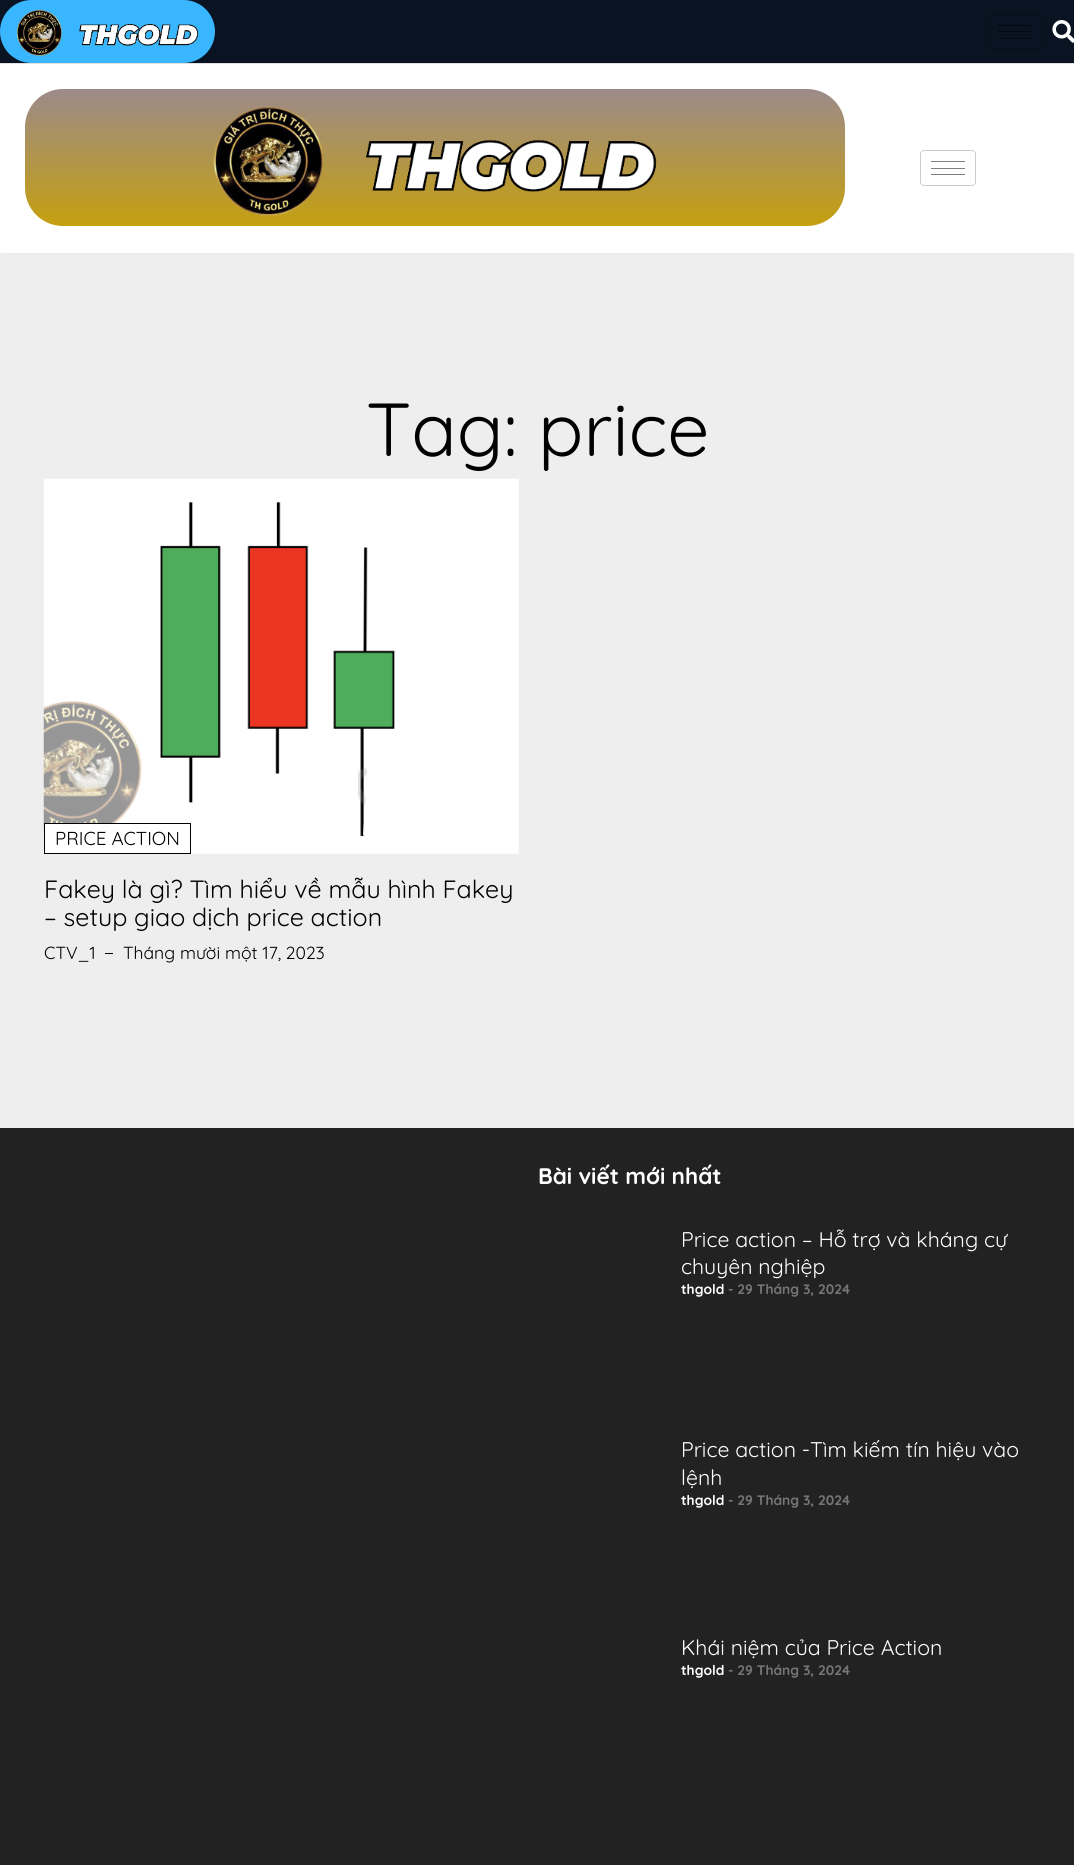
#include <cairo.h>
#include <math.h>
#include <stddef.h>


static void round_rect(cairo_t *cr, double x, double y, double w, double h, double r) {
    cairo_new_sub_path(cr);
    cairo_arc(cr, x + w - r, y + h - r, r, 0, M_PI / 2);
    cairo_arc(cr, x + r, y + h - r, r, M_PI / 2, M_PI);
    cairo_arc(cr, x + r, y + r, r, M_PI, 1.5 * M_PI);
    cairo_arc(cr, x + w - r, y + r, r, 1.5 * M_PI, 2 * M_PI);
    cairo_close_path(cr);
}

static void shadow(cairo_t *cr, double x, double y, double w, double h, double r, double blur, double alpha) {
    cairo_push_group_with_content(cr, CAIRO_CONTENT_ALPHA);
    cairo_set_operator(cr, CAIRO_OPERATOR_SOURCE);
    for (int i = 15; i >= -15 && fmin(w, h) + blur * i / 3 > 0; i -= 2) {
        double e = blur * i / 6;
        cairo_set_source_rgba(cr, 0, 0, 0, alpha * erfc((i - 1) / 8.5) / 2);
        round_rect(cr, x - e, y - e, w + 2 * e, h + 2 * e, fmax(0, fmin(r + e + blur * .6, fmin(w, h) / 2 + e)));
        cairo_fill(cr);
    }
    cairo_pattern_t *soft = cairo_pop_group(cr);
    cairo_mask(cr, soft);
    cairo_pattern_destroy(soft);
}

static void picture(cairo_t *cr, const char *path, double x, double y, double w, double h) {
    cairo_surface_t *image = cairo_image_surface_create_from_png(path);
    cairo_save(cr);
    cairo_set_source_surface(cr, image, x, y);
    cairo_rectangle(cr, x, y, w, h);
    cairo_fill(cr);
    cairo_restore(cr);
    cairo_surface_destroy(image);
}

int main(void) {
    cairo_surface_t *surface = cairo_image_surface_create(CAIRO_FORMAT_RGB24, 1074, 1865);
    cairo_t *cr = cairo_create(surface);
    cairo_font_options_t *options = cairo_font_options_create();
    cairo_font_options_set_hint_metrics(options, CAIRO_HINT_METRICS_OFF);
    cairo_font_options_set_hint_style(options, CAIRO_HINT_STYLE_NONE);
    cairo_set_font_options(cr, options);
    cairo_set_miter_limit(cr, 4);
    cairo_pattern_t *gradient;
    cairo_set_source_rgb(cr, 1, 1, 1);
    cairo_paint(cr);
    cairo_set_source_rgb(cr, 0.039, 0.075, 0.133);
    cairo_rectangle(cr, 0, 0, 1074, 63);
    cairo_fill(cr);
    cairo_set_source_rgb(cr, 0.878, 0.878, 0.878);
    cairo_rectangle(cr, 0, 63, 1074, 1);
    cairo_fill(cr);
    cairo_save(cr);
    cairo_set_fill_rule(cr, CAIRO_FILL_RULE_EVEN_ODD);
    cairo_new_path(cr);
    cairo_move_to(cr, 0, 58);
    cairo_line_to(cr, 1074, 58);
    cairo_line_to(cr, 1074, 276);
    cairo_line_to(cr, 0, 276);
    cairo_close_path(cr);
    cairo_move_to(cr, 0, 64);
    cairo_line_to(cr, 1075, 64);
    cairo_line_to(cr, 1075, 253);
    cairo_line_to(cr, 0, 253);
    cairo_close_path(cr);
    cairo_clip(cr);
    cairo_set_source_rgb(cr, 0, 0, 0);
    shadow(cr, 1, 73, 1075, 188, 0, 4.5, 0.09);
    cairo_restore(cr);
    cairo_set_source_rgb(cr, 0.22, 0.714, 1);
    round_rect(cr, 0, 0, 215, 63, 31.5);
    cairo_fill(cr);
    picture(cr, "img1.png", 17, 9, 182, 47);
    round_rect(cr, 986.5, 14.5, 56, 35, 3.5);
    cairo_set_source_rgb(cr, 0.031, 0.059, 0.106);
    cairo_set_line_width(cr, 1);
    cairo_stroke(cr);
    cairo_set_source_rgb(cr, 0.02, 0.039, 0.067);
    cairo_rectangle(cr, 998, 25, 33, 1);
    cairo_fill(cr);
    cairo_rectangle(cr, 998, 31, 33, 1);
    cairo_fill(cr);
    cairo_rectangle(cr, 998, 38, 33, 1);
    cairo_fill(cr);
    picture(cr, "img2.png", 1052, 20, 22, 23);
    gradient = cairo_pattern_create_linear(435, 89, 435, 226);
    cairo_pattern_add_color_stop_rgba(gradient, 0, 0.612, 0.541, 0.541, 1);
    cairo_pattern_add_color_stop_rgba(gradient, 1, 0.773, 0.627, 0.059, 1);
    cairo_set_source(cr, gradient);
    cairo_pattern_destroy(gradient);
    round_rect(cr, 25, 89, 820, 137, 38);
    cairo_fill(cr);
    picture(cr, "img3.png", 213, 106, 444, 110);
    round_rect(cr, 920.5, 150.5, 55, 35, 3.5);
    cairo_set_source_rgb(cr, 0.8, 0.8, 0.8);
    cairo_stroke(cr);
    cairo_set_source_rgb(cr, 0.502, 0.502, 0.502);
    cairo_rectangle(cr, 931, 161, 34, 1);
    cairo_fill(cr);
    cairo_rectangle(cr, 931, 168, 34, 1);
    cairo_fill(cr);
    cairo_rectangle(cr, 931, 174, 34, 1);
    cairo_fill(cr);
    cairo_set_source_rgb(cr, 0.933, 0.933, 0.933);
    cairo_rectangle(cr, 0, 254, 1074, 874);
    cairo_fill(cr);
    cairo_select_font_face(cr, "Quicksand", CAIRO_FONT_SLANT_NORMAL, CAIRO_FONT_WEIGHT_NORMAL);
    cairo_set_font_size(cr, 75);
    cairo_set_source_rgb(cr, 0, 0, 0);
    cairo_move_to(cr, 366, 456);
    cairo_show_text(cr, "Tag: price");
    picture(cr, "img4.png", 43, 478, 476, 376);
    cairo_set_source_rgb(cr, 1, 1, 1);
    cairo_rectangle(cr, 45, 824, 70, 14);
    cairo_fill(cr);
    cairo_rectangle(cr, 44.5, 823.5, 146, 30);
    cairo_set_source_rgb(cr, 0, 0, 0);
    cairo_stroke(cr);
    cairo_set_font_size(cr, 18.75);
    cairo_move_to(cr, 55, 845);
    cairo_show_text(cr, "PRICE ACTION");
    cairo_set_font_size(cr, 25);
    cairo_move_to(cr, 44, 898);
    cairo_show_text(cr, "Fakey là gì? Tìm hiểu về mẫu hình Fakey");
    cairo_move_to(cr, 44, 926);
    cairo_show_text(cr, "– setup giao dịch price action");
    cairo_set_font_size(cr, 17.5);
    cairo_move_to(cr, 44, 959);
    cairo_show_text(cr, "CTV_1");
    cairo_rectangle(cr, 105, 953, 8, 1);
    cairo_fill(cr);
    cairo_move_to(cr, 123, 959);
    cairo_show_text(cr, "Tháng mười một 17, 2023");
    cairo_set_source_rgb(cr, 0.133, 0.133, 0.133);
    cairo_rectangle(cr, 0, 1128, 1074, 737);
    cairo_fill(cr);
    cairo_select_font_face(cr, "Quicksand", CAIRO_FONT_SLANT_NORMAL, CAIRO_FONT_WEIGHT_BOLD);
    cairo_set_font_size(cr, 22.5);
    cairo_set_source_rgb(cr, 1, 1, 1);
    cairo_move_to(cr, 538, 1184);
    cairo_show_text(cr, "Bài viết mới nhất");
    cairo_select_font_face(cr, "Quicksand", CAIRO_FONT_SLANT_NORMAL, CAIRO_FONT_WEIGHT_NORMAL);
    cairo_set_font_size(cr, 21.25);
    cairo_move_to(cr, 681, 1247);
    cairo_show_text(cr, "Price action – Hỗ trợ và kháng cự");
    cairo_move_to(cr, 681, 1274);
    cairo_show_text(cr, "chuyên nghiệp");
    cairo_select_font_face(cr, "Quicksand", CAIRO_FONT_SLANT_NORMAL, CAIRO_FONT_WEIGHT_BOLD);
    cairo_set_font_size(cr, 13.75);
    cairo_move_to(cr, 681, 1294);
    cairo_show_text(cr, "thgold");
    cairo_set_source_rgb(cr, 0.463, 0.463, 0.463);
    cairo_move_to(cr, 728, 1294);
    cairo_show_text(cr, "- 29 Tháng 3, 2024");
    cairo_select_font_face(cr, "Quicksand", CAIRO_FONT_SLANT_NORMAL, CAIRO_FONT_WEIGHT_NORMAL);
    cairo_set_font_size(cr, 21.25);
    cairo_set_source_rgb(cr, 1, 1, 1);
    cairo_move_to(cr, 681, 1457);
    cairo_show_text(cr, "Price action -Tìm kiếm tín hiệu vào");
    cairo_move_to(cr, 681, 1485);
    cairo_show_text(cr, "lệnh");
    cairo_select_font_face(cr, "Quicksand", CAIRO_FONT_SLANT_NORMAL, CAIRO_FONT_WEIGHT_BOLD);
    cairo_set_font_size(cr, 13.75);
    cairo_move_to(cr, 681, 1505);
    cairo_show_text(cr, "thgold");
    cairo_set_source_rgb(cr, 0.463, 0.463, 0.463);
    cairo_move_to(cr, 728, 1505);
    cairo_show_text(cr, "- 29 Tháng 3, 2024");
    cairo_select_font_face(cr, "Quicksand", CAIRO_FONT_SLANT_NORMAL, CAIRO_FONT_WEIGHT_NORMAL);
    cairo_set_font_size(cr, 21.25);
    cairo_set_source_rgb(cr, 1, 1, 1);
    cairo_move_to(cr, 681, 1655);
    cairo_show_text(cr, "Khái niệm của Price Action");
    cairo_select_font_face(cr, "Quicksand", CAIRO_FONT_SLANT_NORMAL, CAIRO_FONT_WEIGHT_BOLD);
    cairo_set_font_size(cr, 13.75);
    cairo_move_to(cr, 681, 1675);
    cairo_show_text(cr, "thgold");
    cairo_set_source_rgb(cr, 0.463, 0.463, 0.463);
    cairo_move_to(cr, 728, 1675);
    cairo_show_text(cr, "- 29 Tháng 3, 2024");
    cairo_surface_write_to_png(surface, "page.png");
    cairo_font_options_destroy(options);
    cairo_destroy(cr);
    cairo_surface_destroy(surface);
    return 0;
}
